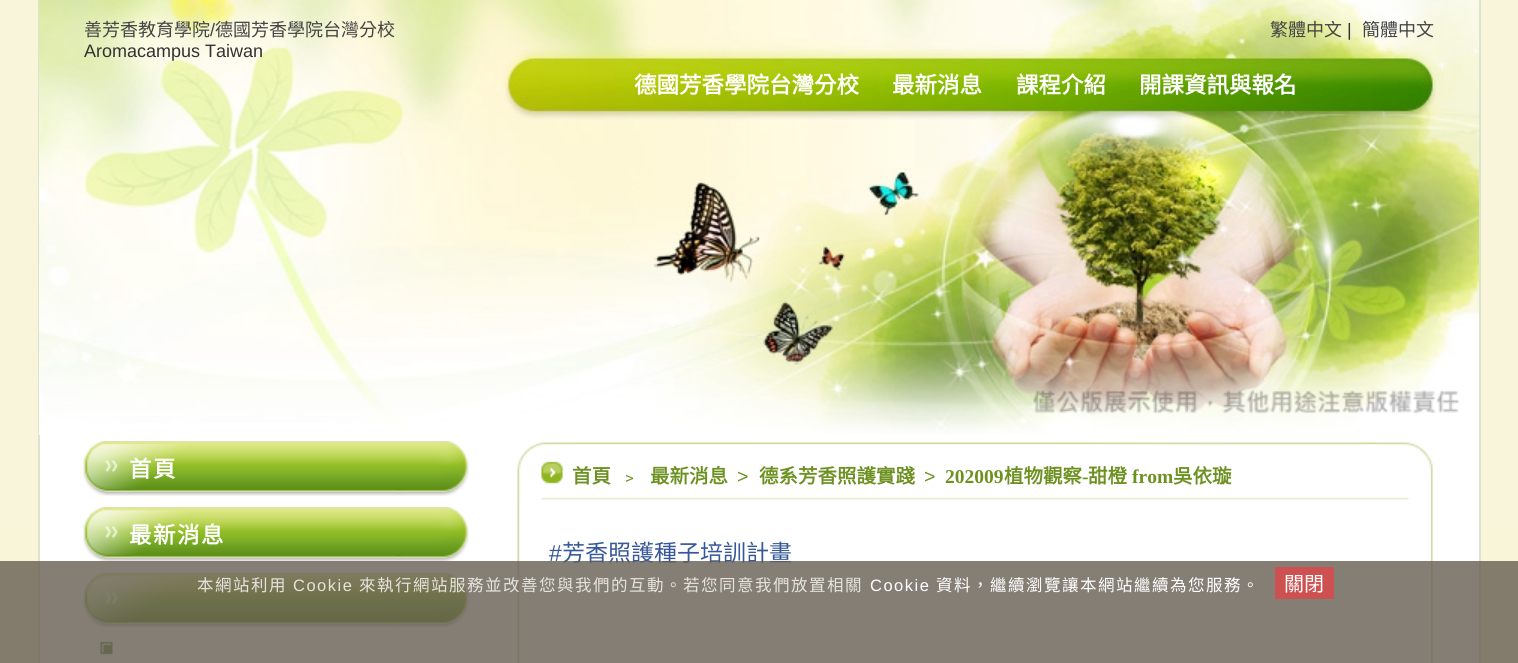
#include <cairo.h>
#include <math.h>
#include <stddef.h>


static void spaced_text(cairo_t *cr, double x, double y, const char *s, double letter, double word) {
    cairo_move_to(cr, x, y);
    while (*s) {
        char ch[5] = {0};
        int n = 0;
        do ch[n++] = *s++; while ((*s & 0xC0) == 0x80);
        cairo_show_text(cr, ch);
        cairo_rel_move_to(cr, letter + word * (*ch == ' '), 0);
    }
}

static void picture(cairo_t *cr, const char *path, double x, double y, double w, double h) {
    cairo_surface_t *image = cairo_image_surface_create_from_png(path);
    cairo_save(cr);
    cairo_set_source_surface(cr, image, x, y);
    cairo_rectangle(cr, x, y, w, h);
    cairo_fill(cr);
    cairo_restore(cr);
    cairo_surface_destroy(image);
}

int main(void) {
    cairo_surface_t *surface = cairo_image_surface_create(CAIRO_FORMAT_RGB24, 1518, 663);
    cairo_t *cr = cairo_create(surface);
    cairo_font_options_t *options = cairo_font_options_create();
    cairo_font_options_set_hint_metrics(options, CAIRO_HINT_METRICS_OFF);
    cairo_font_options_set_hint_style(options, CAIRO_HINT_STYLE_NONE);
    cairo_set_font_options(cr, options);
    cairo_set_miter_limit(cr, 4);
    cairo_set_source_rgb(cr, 1, 1, 1);
    cairo_paint(cr);
    picture(cr, "img1.png", 0, 0, 1518, 663);
    cairo_set_source_rgb(cr, 1, 1, 1);
    cairo_rectangle(cr, 40, 435, 1439, 228);
    cairo_fill(cr);
    cairo_set_source_rgb(cr, 0.863, 0.89, 0.812);
    cairo_rectangle(cr, 1479, 0, 2, 663);
    cairo_fill(cr);
    cairo_rectangle(cr, 38, 0, 2, 663);
    cairo_fill(cr);
    picture(cr, "img2.png", 39, 0, 1440, 435);
    cairo_select_font_face(cr, "Noto Sans CJK TC", CAIRO_FONT_SLANT_NORMAL, CAIRO_FONT_WEIGHT_NORMAL);
    cairo_set_font_size(cr, 18);
    cairo_set_source_rgb(cr, 0.267, 0.267, 0.267);
    cairo_move_to(cr, 84, 36);
    cairo_show_text(cr, "善芳香教育學院");
    cairo_select_font_face(cr, "Liberation Sans", CAIRO_FONT_SLANT_NORMAL, CAIRO_FONT_WEIGHT_NORMAL);
    cairo_move_to(cr, 210, 36);
    cairo_show_text(cr, "/");
    cairo_select_font_face(cr, "Noto Sans CJK TC", CAIRO_FONT_SLANT_NORMAL, CAIRO_FONT_WEIGHT_NORMAL);
    cairo_move_to(cr, 215, 36);
    cairo_show_text(cr, "德國芳香學院台灣分校");
    cairo_select_font_face(cr, "Liberation Sans", CAIRO_FONT_SLANT_NORMAL, CAIRO_FONT_WEIGHT_NORMAL);
    cairo_set_source_rgb(cr, 0.196, 0.196, 0.196);
    cairo_move_to(cr, 84, 57);
    cairo_show_text(cr, "Aromacampus Taiwan");
    cairo_select_font_face(cr, "Noto Sans CJK TC", CAIRO_FONT_SLANT_NORMAL, CAIRO_FONT_WEIGHT_NORMAL);
    cairo_set_source_rgb(cr, 0.267, 0.267, 0.267);
    cairo_move_to(cr, 1270, 36);
    cairo_show_text(cr, "繁體中文");
    cairo_select_font_face(cr, "Liberation Sans", CAIRO_FONT_SLANT_NORMAL, CAIRO_FONT_WEIGHT_NORMAL);
    cairo_set_source_rgb(cr, 0.196, 0.196, 0.196);
    cairo_move_to(cr, 1347, 36);
    cairo_show_text(cr, "|");
    cairo_select_font_face(cr, "Noto Sans CJK TC", CAIRO_FONT_SLANT_NORMAL, CAIRO_FONT_WEIGHT_NORMAL);
    cairo_set_source_rgb(cr, 0.267, 0.267, 0.267);
    cairo_move_to(cr, 1362, 36);
    cairo_show_text(cr, "簡體中文");
    cairo_select_font_face(cr, "Noto Sans CJK TC", CAIRO_FONT_SLANT_NORMAL, CAIRO_FONT_WEIGHT_BOLD);
    cairo_set_font_size(cr, 22.5);
    cairo_set_source_rgb(cr, 1, 1, 1);
    cairo_move_to(cr, 634, 93);
    cairo_show_text(cr, "德國芳香學院台灣分校");
    cairo_move_to(cr, 892, 93);
    cairo_show_text(cr, "最新消息");
    cairo_move_to(cr, 1016, 93);
    cairo_show_text(cr, "課程介紹");
    cairo_move_to(cr, 1139, 93);
    cairo_show_text(cr, "開課資訊與報名");
    picture(cr, "img3.png", 83, 441, 386, 55);
    spaced_text(cr, 129, 477, "首頁", 1.5, 0);
    picture(cr, "img3.png", 83, 507, 386, 55);
    spaced_text(cr, 129, 543, "最新消息", 1.5, 0);
    picture(cr, "img3.png", 83, 573, 386, 55);
    picture(cr, "img4.png", 100, 641, 13, 14);
    picture(cr, "img5.png", 517, 442, 916, 59);
    cairo_set_font_size(cr, 19.5);
    cairo_set_source_rgb(cr, 0.424, 0.569, 0.125);
    cairo_move_to(cr, 572, 483);
    cairo_show_text(cr, "首頁");
    cairo_select_font_face(cr, "Noto Sans CJK TC", CAIRO_FONT_SLANT_NORMAL, CAIRO_FONT_WEIGHT_NORMAL);
    cairo_move_to(cr, 620, 483);
    cairo_show_text(cr, "﹥");
    cairo_select_font_face(cr, "Noto Sans CJK TC", CAIRO_FONT_SLANT_NORMAL, CAIRO_FONT_WEIGHT_BOLD);
    cairo_move_to(cr, 650, 483);
    cairo_show_text(cr, "最新消息");
    cairo_select_font_face(cr, "Liberation Sans", CAIRO_FONT_SLANT_NORMAL, CAIRO_FONT_WEIGHT_NORMAL);
    cairo_move_to(cr, 737, 483);
    cairo_show_text(cr, ">");
    cairo_select_font_face(cr, "Noto Sans CJK TC", CAIRO_FONT_SLANT_NORMAL, CAIRO_FONT_WEIGHT_BOLD);
    cairo_move_to(cr, 759, 483);
    cairo_show_text(cr, "德系芳香照護實踐");
    cairo_select_font_face(cr, "Liberation Sans", CAIRO_FONT_SLANT_NORMAL, CAIRO_FONT_WEIGHT_NORMAL);
    cairo_move_to(cr, 924, 483);
    cairo_show_text(cr, ">");
    cairo_select_font_face(cr, "Liberation Serif", CAIRO_FONT_SLANT_NORMAL, CAIRO_FONT_WEIGHT_BOLD);
    cairo_move_to(cr, 945, 483);
    cairo_show_text(cr, "202009");
    cairo_select_font_face(cr, "Noto Sans CJK TC", CAIRO_FONT_SLANT_NORMAL, CAIRO_FONT_WEIGHT_BOLD);
    cairo_move_to(cr, 1004, 483);
    cairo_show_text(cr, "植物觀察");
    cairo_select_font_face(cr, "Liberation Serif", CAIRO_FONT_SLANT_NORMAL, CAIRO_FONT_WEIGHT_BOLD);
    cairo_move_to(cr, 1082, 483);
    cairo_show_text(cr, "-");
    cairo_select_font_face(cr, "Noto Sans CJK TC", CAIRO_FONT_SLANT_NORMAL, CAIRO_FONT_WEIGHT_BOLD);
    cairo_move_to(cr, 1088, 483);
    cairo_show_text(cr, "甜橙");
    cairo_select_font_face(cr, "Liberation Serif", CAIRO_FONT_SLANT_NORMAL, CAIRO_FONT_WEIGHT_BOLD);
    cairo_move_to(cr, 1132, 483);
    cairo_show_text(cr, "from");
    cairo_select_font_face(cr, "Noto Sans CJK TC", CAIRO_FONT_SLANT_NORMAL, CAIRO_FONT_WEIGHT_BOLD);
    cairo_move_to(cr, 1173, 483);
    cairo_show_text(cr, "吳依璇");
    picture(cr, "img6.png", 517, 501, 916, 162);
    cairo_select_font_face(cr, "Liberation Sans", CAIRO_FONT_SLANT_NORMAL, CAIRO_FONT_WEIGHT_NORMAL);
    cairo_set_font_size(cr, 23);
    cairo_set_source_rgb(cr, 0.212, 0.345, 0.6);
    cairo_move_to(cr, 549, 561);
    cairo_show_text(cr, "#");
    cairo_select_font_face(cr, "Noto Sans CJK TC", CAIRO_FONT_SLANT_NORMAL, CAIRO_FONT_WEIGHT_NORMAL);
    cairo_move_to(cr, 562, 561);
    cairo_show_text(cr, "芳香照護種子培訓計畫");
    cairo_set_source_rgba(cr, 0.4, 0.369, 0.325, 0.8);
    cairo_rectangle(cr, 0, 561, 1518, 102);
    cairo_fill(cr);
    cairo_set_font_size(cr, 16.5);
    cairo_set_source_rgb(cr, 0.894, 0.894, 0.867);
    spaced_text(cr, 197, 591, "本網站利用", 1.5, 0);
    cairo_select_font_face(cr, "Liberation Sans", CAIRO_FONT_SLANT_NORMAL, CAIRO_FONT_WEIGHT_NORMAL);
    spaced_text(cr, 293, 591, "Cookie", 1.5, 0);
    cairo_select_font_face(cr, "Noto Sans CJK TC", CAIRO_FONT_SLANT_NORMAL, CAIRO_FONT_WEIGHT_NORMAL);
    spaced_text(cr, 359, 591, "來執行網站服務並改善您與我們的互動。若您同意我們放置相關", 1.5, 0);
    cairo_select_font_face(cr, "Liberation Sans", CAIRO_FONT_SLANT_NORMAL, CAIRO_FONT_WEIGHT_NORMAL);
    cairo_set_source_rgb(cr, 1, 1, 1);
    spaced_text(cr, 870, 591, "Cookie", 1.5, 0);
    cairo_select_font_face(cr, "Noto Sans CJK TC", CAIRO_FONT_SLANT_NORMAL, CAIRO_FONT_WEIGHT_NORMAL);
    spaced_text(cr, 936, 591, "資料，繼續瀏覽讓本網站繼續為您服務。", 1.5, 0);
    cairo_set_source_rgb(cr, 0.804, 0.318, 0.318);
    cairo_rectangle(cr, 1275, 567, 59, 32);
    cairo_fill(cr);
    cairo_set_font_size(cr, 20);
    cairo_set_source_rgb(cr, 1, 1, 1);
    cairo_move_to(cr, 1284, 591);
    cairo_show_text(cr, "關閉");
    cairo_surface_write_to_png(surface, "page.png");
    cairo_font_options_destroy(options);
    cairo_destroy(cr);
    cairo_surface_destroy(surface);
    return 0;
}
